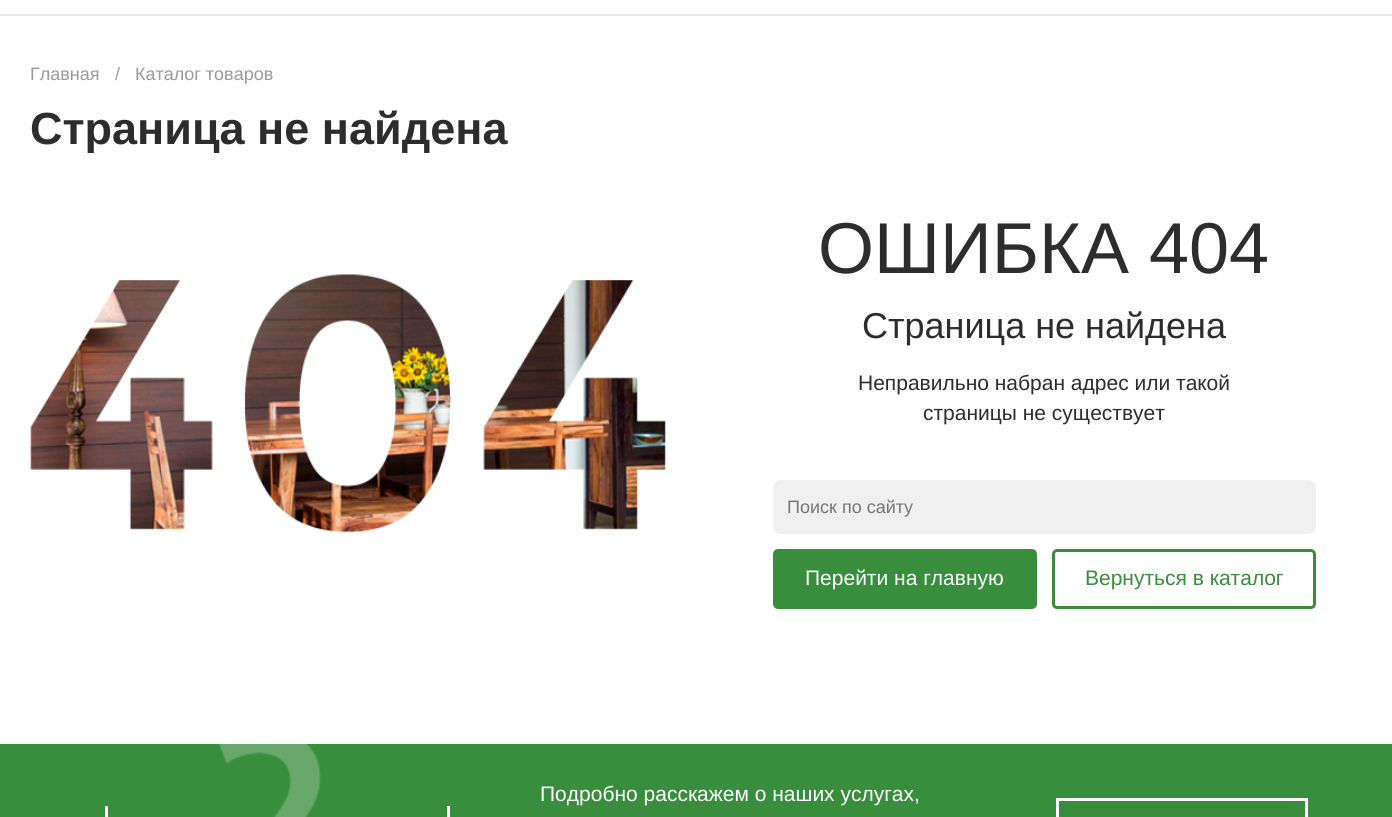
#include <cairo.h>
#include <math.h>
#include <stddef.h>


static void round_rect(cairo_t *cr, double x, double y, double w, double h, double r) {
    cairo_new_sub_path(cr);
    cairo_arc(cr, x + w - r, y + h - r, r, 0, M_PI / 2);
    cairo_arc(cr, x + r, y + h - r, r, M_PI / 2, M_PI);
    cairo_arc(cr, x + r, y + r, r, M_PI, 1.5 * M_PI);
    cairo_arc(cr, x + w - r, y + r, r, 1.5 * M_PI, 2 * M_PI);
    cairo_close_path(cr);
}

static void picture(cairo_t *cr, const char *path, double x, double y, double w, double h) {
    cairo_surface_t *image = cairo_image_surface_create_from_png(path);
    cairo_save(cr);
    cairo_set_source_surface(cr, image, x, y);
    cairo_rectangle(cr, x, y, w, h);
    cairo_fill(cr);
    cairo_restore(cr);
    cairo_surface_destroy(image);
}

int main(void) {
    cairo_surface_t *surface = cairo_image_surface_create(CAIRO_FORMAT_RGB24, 1392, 817);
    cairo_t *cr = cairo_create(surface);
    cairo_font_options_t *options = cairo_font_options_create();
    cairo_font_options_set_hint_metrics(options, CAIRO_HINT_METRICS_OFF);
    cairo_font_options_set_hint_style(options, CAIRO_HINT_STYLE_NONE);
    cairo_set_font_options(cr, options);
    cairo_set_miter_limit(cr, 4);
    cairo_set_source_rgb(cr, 1, 1, 1);
    cairo_paint(cr);
    cairo_set_source_rgb(cr, 0.91, 0.91, 0.91);
    cairo_rectangle(cr, 0, 14, 1392, 2);
    cairo_fill(cr);
    cairo_select_font_face(cr, "Liberation Sans", CAIRO_FONT_SLANT_NORMAL, CAIRO_FONT_WEIGHT_NORMAL);
    cairo_set_font_size(cr, 18);
    cairo_set_source_rgb(cr, 0.604, 0.604, 0.604);
    cairo_move_to(cr, 30, 80);
    cairo_show_text(cr, "Главная");
    cairo_move_to(cr, 115, 80);
    cairo_show_text(cr, "/");
    cairo_move_to(cr, 135, 80);
    cairo_show_text(cr, "Каталог товаров");
    cairo_save(cr);
    cairo_rectangle(cr, 0, 104, 1392, 49);
    cairo_clip(cr);
    cairo_select_font_face(cr, "Liberation Sans", CAIRO_FONT_SLANT_NORMAL, CAIRO_FONT_WEIGHT_BOLD);
    cairo_set_font_size(cr, 45);
    cairo_set_source_rgb(cr, 0.176, 0.176, 0.176);
    cairo_move_to(cr, 30, 144);
    cairo_show_text(cr, "Страница не найдена");
    cairo_restore(cr);
    picture(cr, "img1.png", 30, 274, 636, 259);
    cairo_set_font_size(cr, 72);
    cairo_set_source_rgb(cr, 0.176, 0.176, 0.176);
    cairo_move_to(cr, 818, 273);
    cairo_show_text(cr, "ОШИБКА 404");
    cairo_set_font_size(cr, 36);
    cairo_move_to(cr, 862, 338);
    cairo_show_text(cr, "Страница не найдена");
    cairo_set_font_size(cr, 21);
    cairo_move_to(cr, 858, 390);
    cairo_show_text(cr, "Неправильно набран адрес или такой");
    cairo_move_to(cr, 923, 420);
    cairo_show_text(cr, "страницы не существует");
    cairo_set_source_rgb(cr, 0.941, 0.941, 0.941);
    round_rect(cr, 773, 480, 543, 54, 8);
    cairo_fill(cr);
    cairo_set_font_size(cr, 18);
    cairo_set_source_rgb(cr, 0.459, 0.459, 0.459);
    cairo_move_to(cr, 787, 513);
    cairo_show_text(cr, "Поиск по сайту");
    cairo_set_source_rgb(cr, 0.22, 0.557, 0.235);
    round_rect(cr, 774.5, 550.5, 261, 57, 3.5);
    cairo_fill_preserve(cr);
    cairo_set_line_width(cr, 3);
    cairo_stroke(cr);
    cairo_set_font_size(cr, 21);
    cairo_set_source_rgb(cr, 1, 1, 1);
    cairo_move_to(cr, 805, 585);
    cairo_show_text(cr, "Перейти на главную");
    round_rect(cr, 1053.5, 550.5, 261, 57, 3.5);
    cairo_set_source_rgb(cr, 0.22, 0.557, 0.235);
    cairo_stroke(cr);
    cairo_move_to(cr, 1085, 585);
    cairo_show_text(cr, "Вернуться в каталог");
    cairo_rectangle(cr, 0, 744, 1392, 73);
    cairo_fill(cr);
    picture(cr, "img2.png", 218, 744, 103, 73);
    cairo_set_source_rgb(cr, 1, 1, 1);
    cairo_rectangle(cr, 447, 806, 3, 11);
    cairo_fill(cr);
    cairo_rectangle(cr, 105, 806, 3, 11);
    cairo_fill(cr);
    cairo_move_to(cr, 540, 801);
    cairo_show_text(cr, "Подробно расскажем о наших услугах,");
    cairo_rectangle(cr, 1057.5, 799.5, 249, 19);
    cairo_stroke(cr);
    cairo_surface_write_to_png(surface, "page.png");
    cairo_font_options_destroy(options);
    cairo_destroy(cr);
    cairo_surface_destroy(surface);
    return 0;
}
